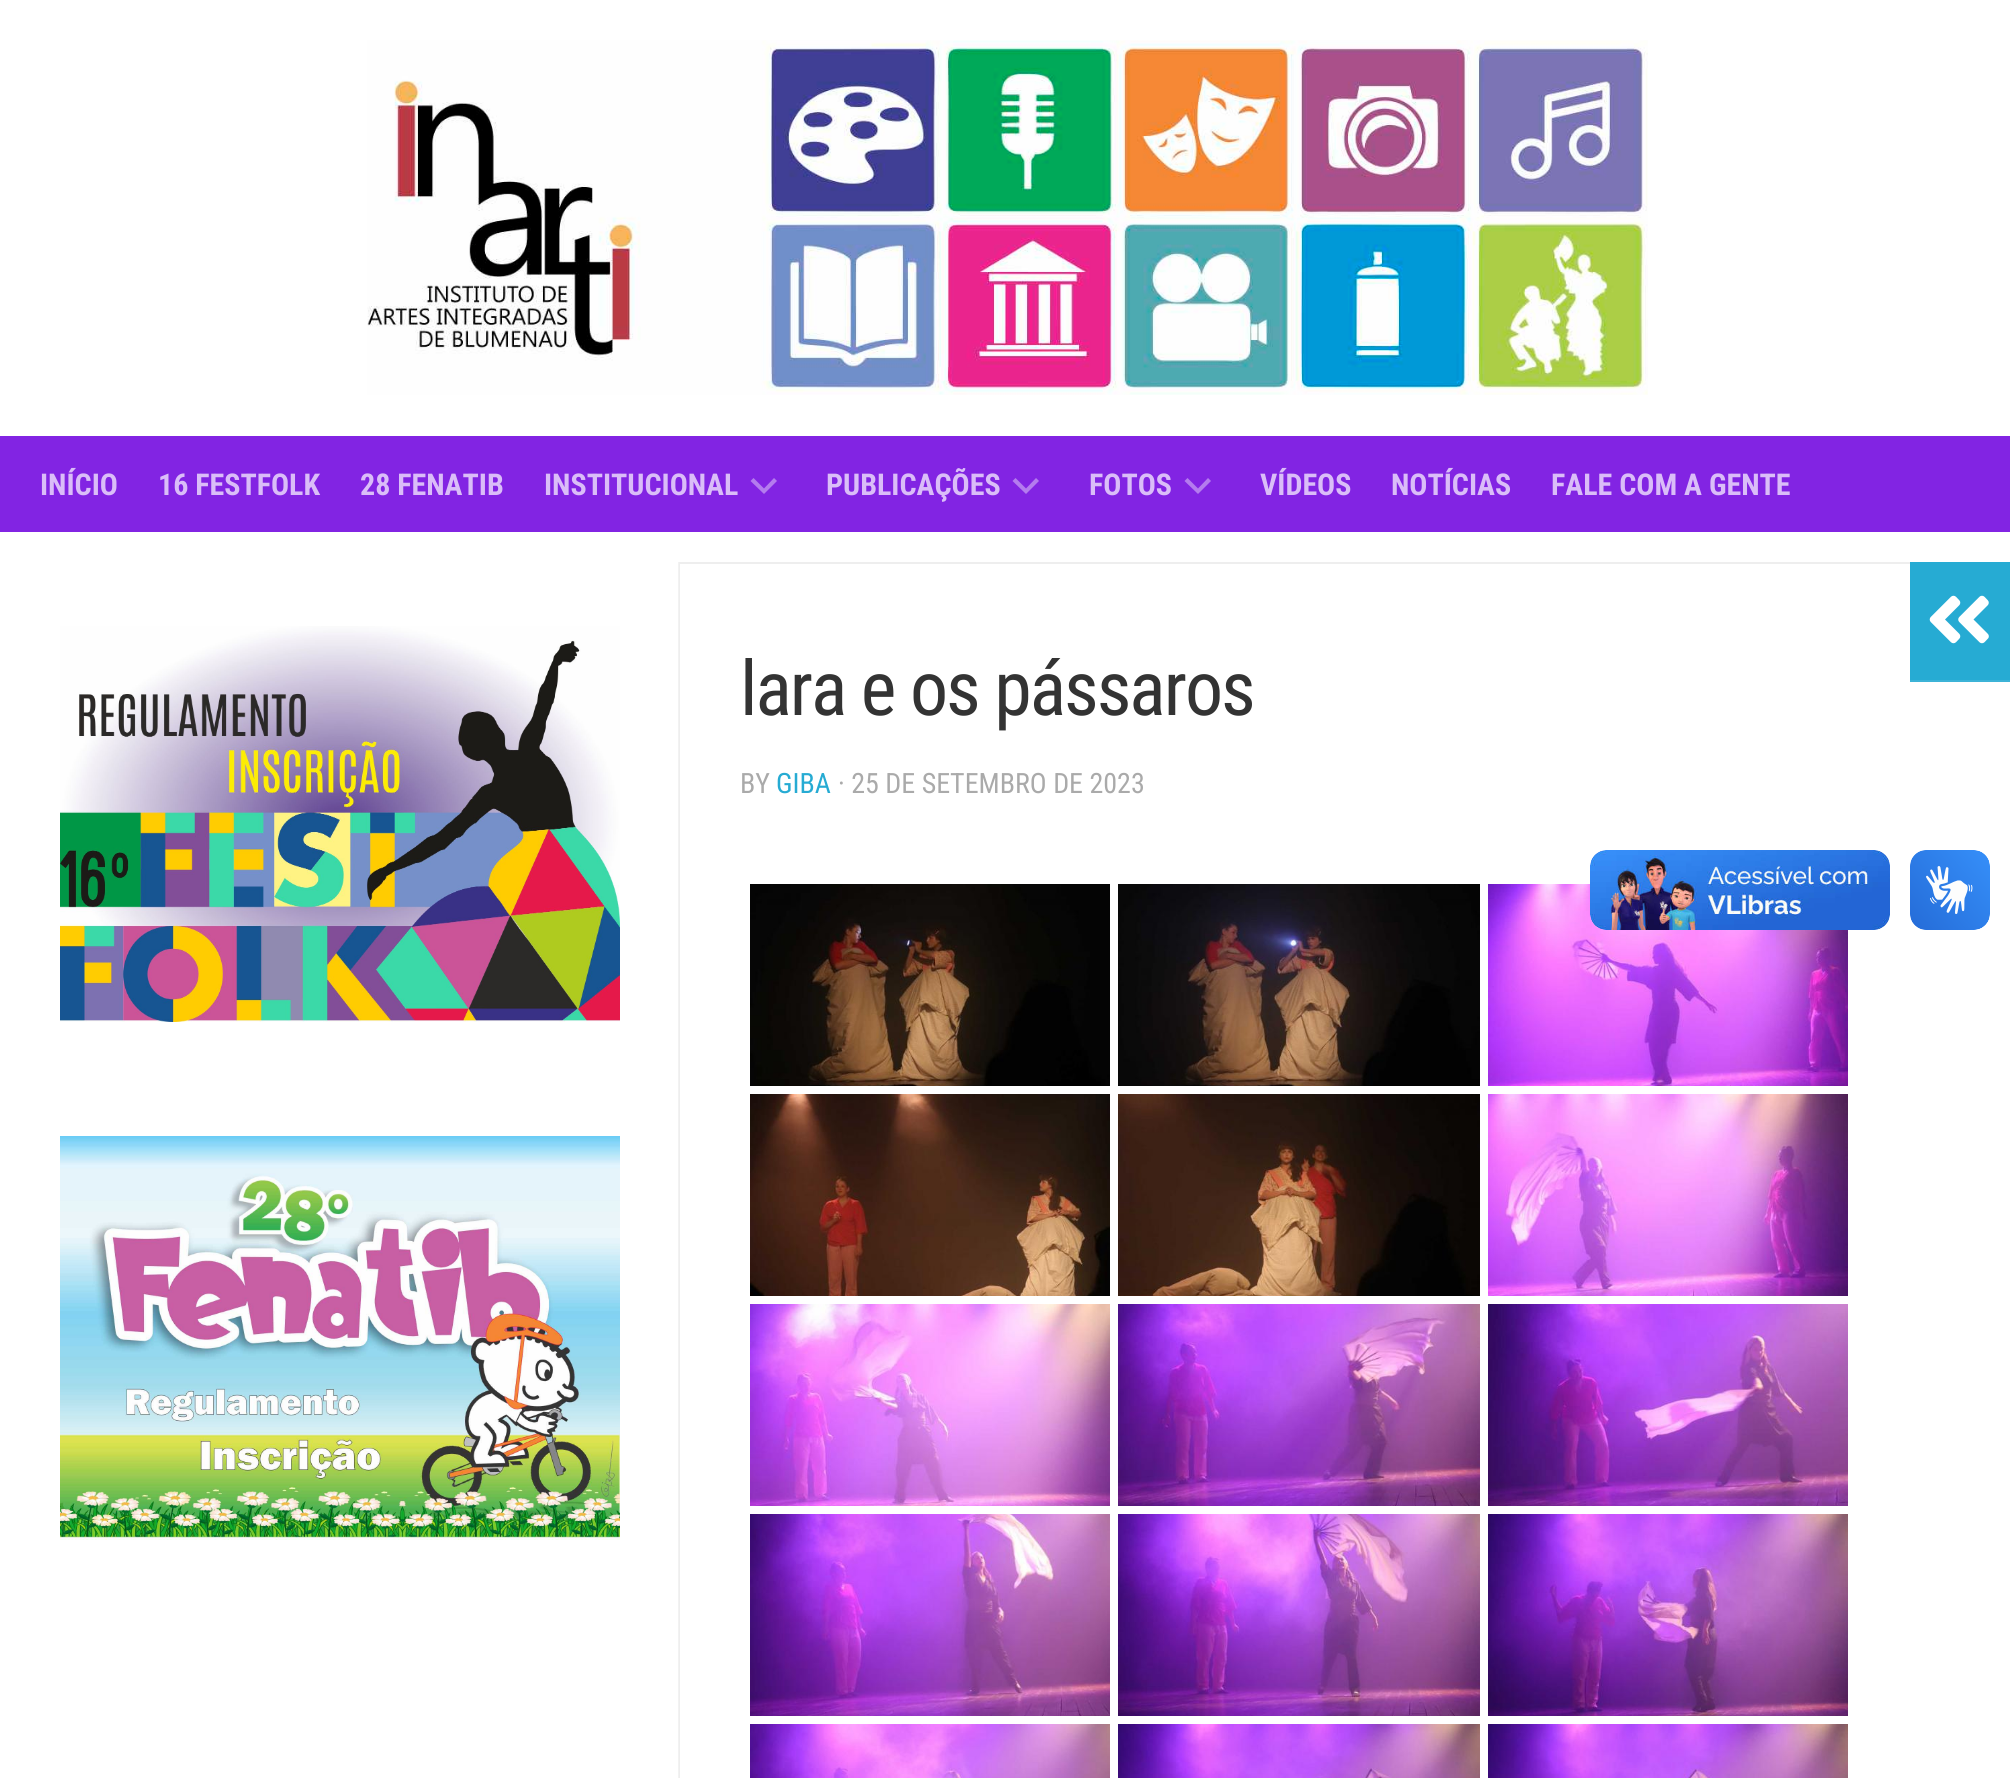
#include <cairo.h>
#include <math.h>
#include <stddef.h>


static void spaced_text(cairo_t *cr, double x, double y, const char *s, double letter, double word) {
    cairo_move_to(cr, x, y);
    while (*s) {
        char ch[5] = {0};
        int n = 0;
        do ch[n++] = *s++; while ((*s & 0xC0) == 0x80);
        cairo_show_text(cr, ch);
        cairo_rel_move_to(cr, letter + word * (*ch == ' '), 0);
    }
}

static void picture(cairo_t *cr, const char *path, double x, double y, double w, double h) {
    cairo_surface_t *image = cairo_image_surface_create_from_png(path);
    cairo_save(cr);
    cairo_set_source_surface(cr, image, x, y);
    cairo_rectangle(cr, x, y, w, h);
    cairo_fill(cr);
    cairo_restore(cr);
    cairo_surface_destroy(image);
}

int main(void) {
    cairo_surface_t *surface = cairo_image_surface_create(CAIRO_FORMAT_RGB24, 2010, 1778);
    cairo_t *cr = cairo_create(surface);
    cairo_font_options_t *options = cairo_font_options_create();
    cairo_font_options_set_hint_metrics(options, CAIRO_HINT_METRICS_OFF);
    cairo_font_options_set_hint_style(options, CAIRO_HINT_STYLE_NONE);
    cairo_set_font_options(cr, options);
    cairo_set_miter_limit(cr, 4);
    cairo_set_source_rgb(cr, 1, 1, 1);
    cairo_paint(cr);
    picture(cr, "img1.png", 367, 40, 1281, 355);
    cairo_set_source_rgb(cr, 0.51, 0.141, 0.89);
    cairo_rectangle(cr, 0, 436, 2010, 96);
    cairo_fill(cr);
    cairo_select_font_face(cr, "Roboto Condensed", CAIRO_FONT_SLANT_NORMAL, CAIRO_FONT_WEIGHT_BOLD);
    cairo_set_font_size(cr, 30);
    cairo_set_source_rgb(cr, 0.855, 0.741, 0.969);
    cairo_move_to(cr, 40, 495);
    cairo_show_text(cr, "INÍCIO");
    cairo_move_to(cr, 158, 495);
    cairo_show_text(cr, "16 FESTFOLK");
    cairo_move_to(cr, 360, 495);
    cairo_show_text(cr, "28 FENATIB");
    cairo_move_to(cr, 544, 495);
    cairo_show_text(cr, "INSTITUCIONAL");
    cairo_set_source_rgb(cr, 0.706, 0.486, 0.933);
    cairo_set_fill_rule(cr, CAIRO_FILL_RULE_EVEN_ODD);
    cairo_new_path(cr);
    cairo_move_to(cr, 764, 488.5);
    cairo_line_to(cr, 774, 478);
    cairo_line_to(cr, 777, 481);
    cairo_line_to(cr, 764, 494);
    cairo_line_to(cr, 750.5, 481);
    cairo_line_to(cr, 753.5, 478);
    cairo_close_path(cr);
    cairo_fill(cr);
    cairo_set_source_rgb(cr, 0.855, 0.741, 0.969);
    cairo_move_to(cr, 826, 495);
    cairo_show_text(cr, "PUBLICAÇÕES");
    cairo_set_source_rgb(cr, 0.706, 0.486, 0.933);
    cairo_new_path(cr);
    cairo_move_to(cr, 1026, 488.5);
    cairo_line_to(cr, 1036, 478);
    cairo_line_to(cr, 1039, 481);
    cairo_line_to(cr, 1026, 494);
    cairo_line_to(cr, 1012.5, 481);
    cairo_line_to(cr, 1015.5, 478);
    cairo_close_path(cr);
    cairo_fill(cr);
    cairo_set_source_rgb(cr, 0.855, 0.741, 0.969);
    cairo_move_to(cr, 1089, 495);
    cairo_show_text(cr, "FOTOS");
    cairo_set_source_rgb(cr, 0.706, 0.486, 0.933);
    cairo_new_path(cr);
    cairo_move_to(cr, 1198, 488.5);
    cairo_line_to(cr, 1208, 478);
    cairo_line_to(cr, 1211, 481);
    cairo_line_to(cr, 1198, 494);
    cairo_line_to(cr, 1184.5, 481);
    cairo_line_to(cr, 1187.5, 478);
    cairo_close_path(cr);
    cairo_fill(cr);
    cairo_set_source_rgb(cr, 0.855, 0.741, 0.969);
    cairo_move_to(cr, 1260, 495);
    cairo_show_text(cr, "VÍDEOS");
    cairo_move_to(cr, 1391, 495);
    cairo_show_text(cr, "NOTÍCIAS");
    cairo_move_to(cr, 1551, 495);
    cairo_show_text(cr, "FALE COM A GENTE");
    picture(cr, "img2.png", 678, 562, 2, 1216);
    picture(cr, "img3.png", 60, 626, 560, 396);
    picture(cr, "img4.png", 60, 1136, 560, 404);
    cairo_set_source_rgb(cr, 0.933, 0.933, 0.933);
    cairo_rectangle(cr, 680, 562, 1230, 2);
    cairo_fill(cr);
    cairo_select_font_face(cr, "Roboto Condensed", CAIRO_FONT_SLANT_NORMAL, CAIRO_FONT_WEIGHT_NORMAL);
    cairo_set_font_size(cr, 76);
    cairo_set_source_rgb(cr, 0.2, 0.2, 0.2);
    spaced_text(cr, 740, 715, "lara e os pássaros", -2, 0);
    cairo_set_font_size(cr, 28);
    cairo_set_source_rgb(cr, 0.667, 0.667, 0.667);
    cairo_move_to(cr, 740, 793);
    cairo_show_text(cr, "BY");
    cairo_set_source_rgb(cr, 0.149, 0.671, 0.827);
    cairo_move_to(cr, 776, 793);
    cairo_show_text(cr, "GIBA");
    cairo_set_source_rgb(cr, 0.667, 0.667, 0.667);
    cairo_move_to(cr, 838, 793);
    cairo_show_text(cr, "· 25 DE SETEMBRO DE 2023");
    picture(cr, "img5.png", 750, 884, 360, 202);
    picture(cr, "img6.png", 1118, 884, 362, 202);
    picture(cr, "img7.png", 1488, 884, 360, 202);
    picture(cr, "img8.png", 750, 1094, 360, 202);
    picture(cr, "img9.png", 1118, 1094, 362, 202);
    picture(cr, "img10.png", 1488, 1094, 360, 202);
    picture(cr, "img11.png", 750, 1304, 360, 202);
    picture(cr, "img12.png", 1118, 1304, 362, 202);
    picture(cr, "img13.png", 1488, 1304, 360, 202);
    picture(cr, "img14.png", 750, 1514, 360, 202);
    picture(cr, "img15.png", 1118, 1514, 362, 202);
    picture(cr, "img16.png", 1488, 1514, 360, 202);
    picture(cr, "img17.png", 750, 1724, 360, 54);
    picture(cr, "img18.png", 1118, 1724, 362, 54);
    picture(cr, "img19.png", 1488, 1724, 360, 54);
    cairo_set_source_rgb(cr, 0.149, 0.671, 0.827);
    cairo_rectangle(cr, 1910, 562, 100, 118);
    cairo_fill(cr);
    cairo_set_source_rgb(cr, 0.235, 0.702, 0.843);
    cairo_rectangle(cr, 1910, 680, 100, 2);
    cairo_fill(cr);
    picture(cr, "img20.png", 1929, 595, 60, 49);
    picture(cr, "img21.png", 1590, 850, 300, 80);
    picture(cr, "img22.png", 1910, 850, 80, 80);
    cairo_surface_write_to_png(surface, "page.png");
    cairo_font_options_destroy(options);
    cairo_destroy(cr);
    cairo_surface_destroy(surface);
    return 0;
}
